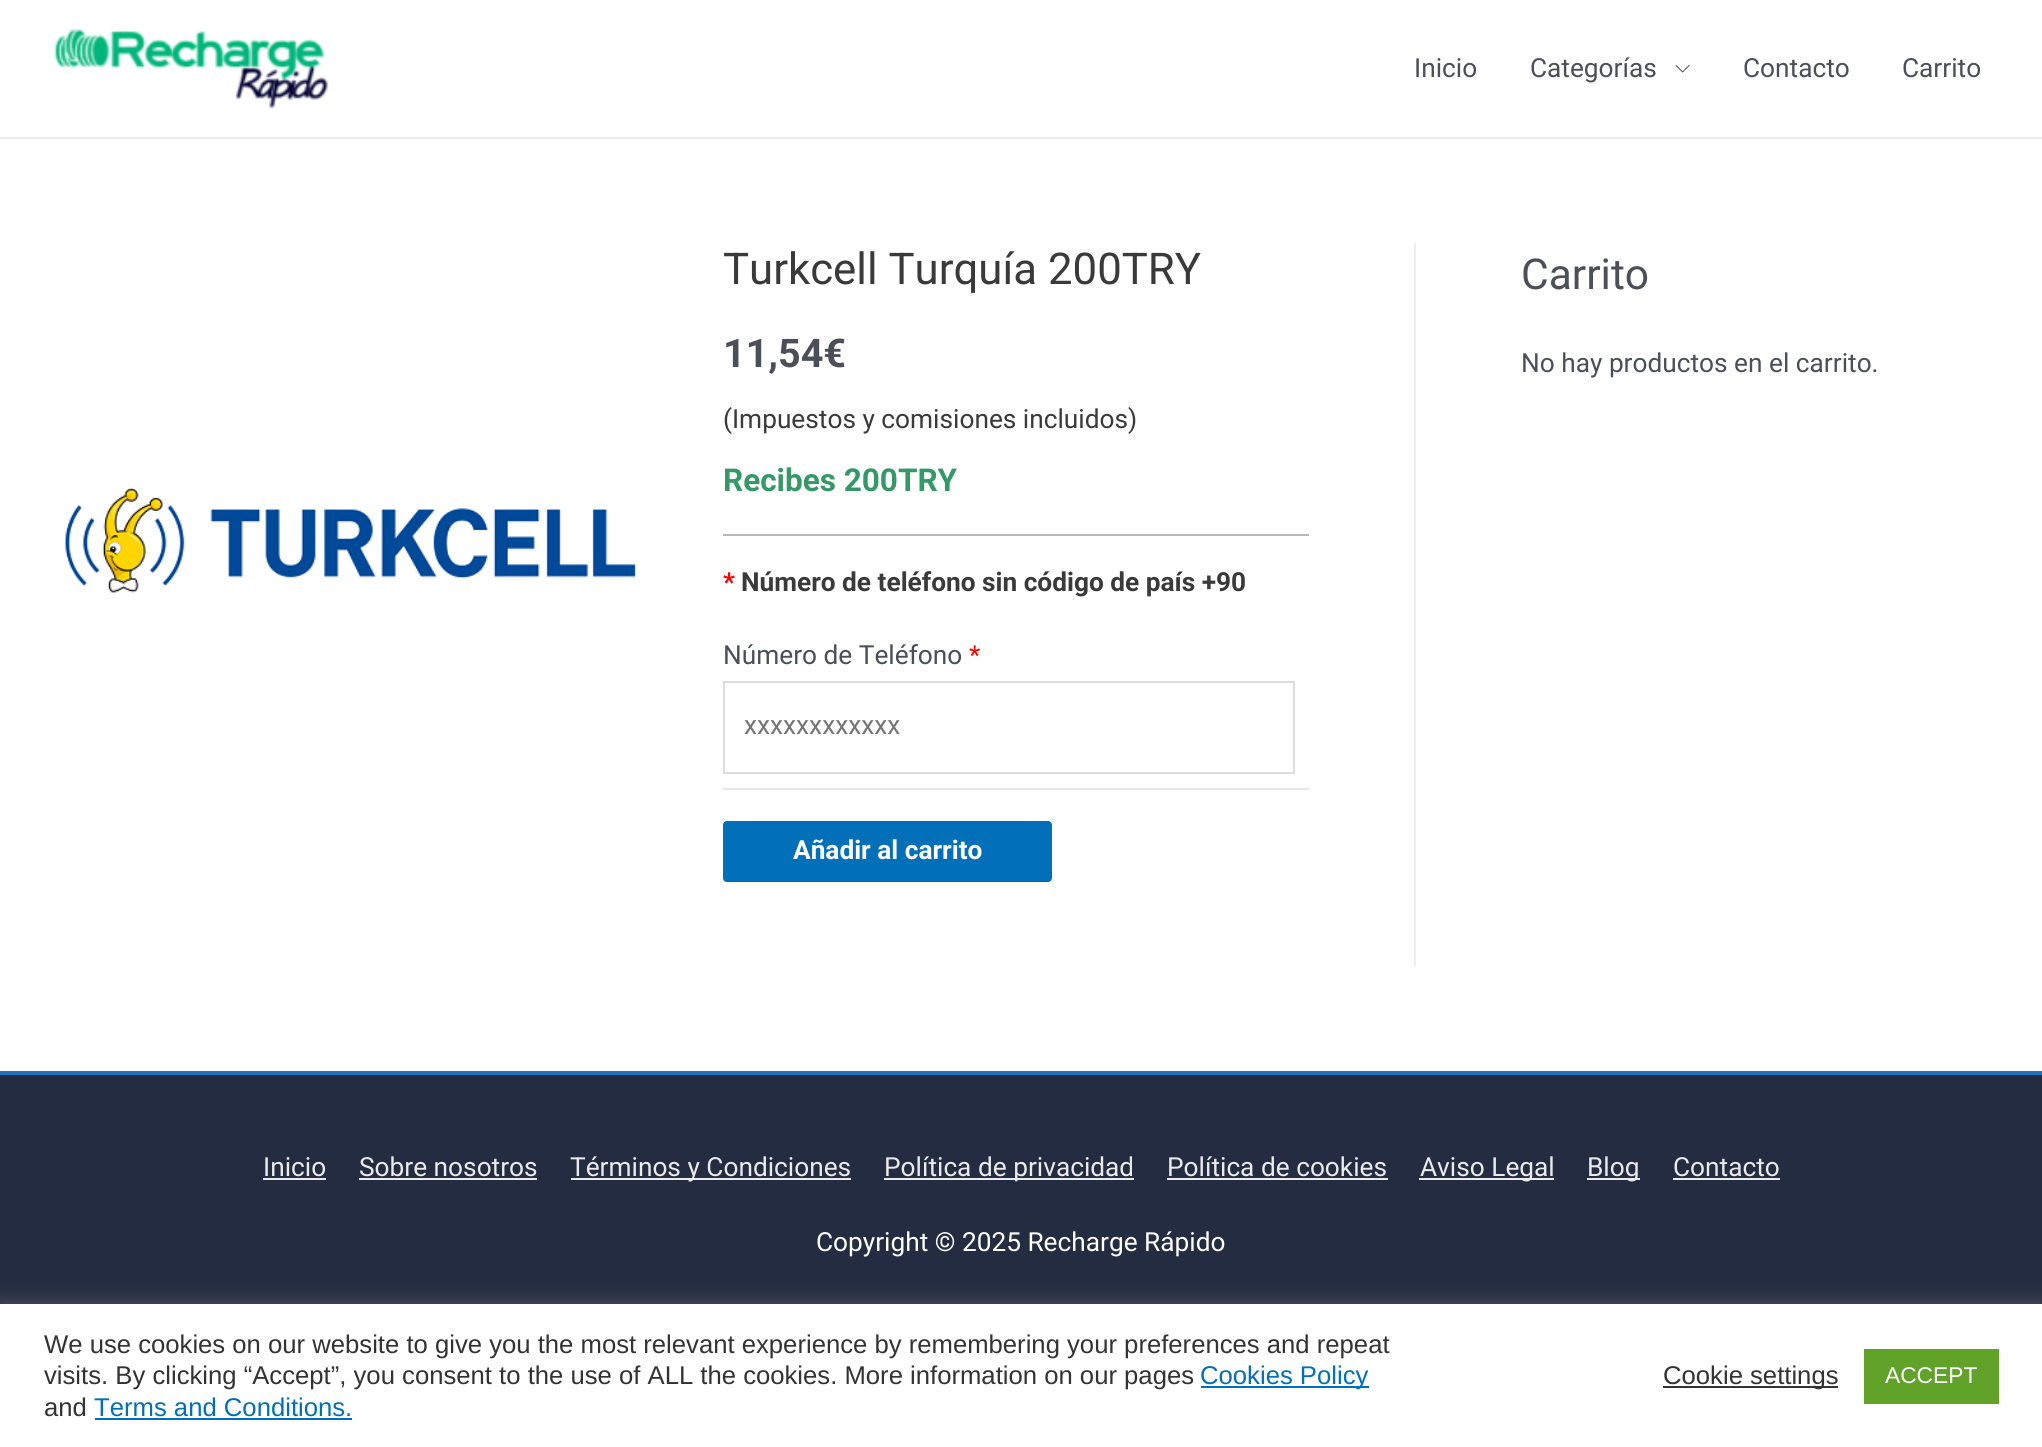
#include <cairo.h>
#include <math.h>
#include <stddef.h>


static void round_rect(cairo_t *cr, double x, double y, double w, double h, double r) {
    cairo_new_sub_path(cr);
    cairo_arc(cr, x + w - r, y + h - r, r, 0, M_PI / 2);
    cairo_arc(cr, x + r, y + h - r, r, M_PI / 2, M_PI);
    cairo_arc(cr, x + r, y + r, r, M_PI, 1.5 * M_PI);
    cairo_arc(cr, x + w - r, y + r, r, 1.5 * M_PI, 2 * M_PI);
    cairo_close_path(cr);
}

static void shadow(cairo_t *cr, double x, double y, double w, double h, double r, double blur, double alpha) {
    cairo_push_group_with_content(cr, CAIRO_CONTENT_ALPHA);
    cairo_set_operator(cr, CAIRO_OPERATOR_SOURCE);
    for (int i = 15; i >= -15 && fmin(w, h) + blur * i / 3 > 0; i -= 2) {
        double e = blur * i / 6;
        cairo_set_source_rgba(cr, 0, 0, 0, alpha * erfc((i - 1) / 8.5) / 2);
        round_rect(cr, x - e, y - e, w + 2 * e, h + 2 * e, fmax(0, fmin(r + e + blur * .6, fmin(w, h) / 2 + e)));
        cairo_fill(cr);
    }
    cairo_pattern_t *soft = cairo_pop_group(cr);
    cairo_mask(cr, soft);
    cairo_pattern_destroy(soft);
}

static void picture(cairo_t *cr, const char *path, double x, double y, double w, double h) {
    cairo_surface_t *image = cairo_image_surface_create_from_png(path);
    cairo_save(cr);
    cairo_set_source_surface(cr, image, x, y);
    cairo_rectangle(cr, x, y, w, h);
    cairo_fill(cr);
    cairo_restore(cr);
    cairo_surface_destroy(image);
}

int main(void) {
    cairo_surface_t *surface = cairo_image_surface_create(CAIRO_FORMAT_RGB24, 2042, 1447);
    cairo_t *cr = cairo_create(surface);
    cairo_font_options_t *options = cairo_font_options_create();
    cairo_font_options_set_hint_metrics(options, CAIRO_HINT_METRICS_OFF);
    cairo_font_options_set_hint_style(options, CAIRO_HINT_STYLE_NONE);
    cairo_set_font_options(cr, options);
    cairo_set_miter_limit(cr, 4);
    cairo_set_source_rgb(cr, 1, 1, 1);
    cairo_paint(cr);
    cairo_set_source_rgb(cr, 0.918, 0.918, 0.918);
    cairo_rectangle(cr, 0, 137, 2042, 2);
    cairo_fill(cr);
    picture(cr, "img1.png", 54, 28, 275, 81);
    cairo_select_font_face(cr, "Roboto", CAIRO_FONT_SLANT_NORMAL, CAIRO_FONT_WEIGHT_NORMAL);
    cairo_set_font_size(cr, 26.25);
    cairo_set_source_rgb(cr, 0.294, 0.31, 0.345);
    cairo_move_to(cr, 1414, 77);
    cairo_show_text(cr, "Inicio");
    cairo_move_to(cr, 1530, 77);
    cairo_show_text(cr, "Categorías");
    picture(cr, "img2.png", 1675, 64, 15, 9);
    cairo_move_to(cr, 1743, 77);
    cairo_show_text(cr, "Contacto");
    cairo_move_to(cr, 1902, 77);
    cairo_show_text(cr, "Carrito");
    cairo_set_source_rgb(cr, 0.933, 0.933, 0.933);
    cairo_rectangle(cr, 1414, 243, 2, 723);
    cairo_fill(cr);
    picture(cr, "img3.png", 64, 487, 572, 106);
    cairo_set_font_size(cr, 43.75);
    cairo_set_source_rgb(cr, 0.227, 0.227, 0.227);
    cairo_move_to(cr, 723, 284);
    cairo_show_text(cr, "Turkcell Turquía 200TRY");
    cairo_select_font_face(cr, "Roboto", CAIRO_FONT_SLANT_NORMAL, CAIRO_FONT_WEIGHT_BOLD);
    cairo_set_font_size(cr, 39.5);
    cairo_set_source_rgb(cr, 0.294, 0.31, 0.345);
    cairo_move_to(cr, 723, 367);
    cairo_show_text(cr, "11,54€");
    cairo_select_font_face(cr, "Roboto", CAIRO_FONT_SLANT_NORMAL, CAIRO_FONT_WEIGHT_NORMAL);
    cairo_set_font_size(cr, 26.25);
    cairo_set_source_rgb(cr, 0.227, 0.227, 0.227);
    cairo_move_to(cr, 723, 428);
    cairo_show_text(cr, "(Impuestos y comisiones incluidos)");
    cairo_select_font_face(cr, "Roboto", CAIRO_FONT_SLANT_NORMAL, CAIRO_FONT_WEIGHT_BOLD);
    cairo_set_font_size(cr, 31.5);
    cairo_set_source_rgb(cr, 0.2, 0.6, 0.4);
    cairo_move_to(cr, 723, 491);
    cairo_show_text(cr, "Recibes 200TRY");
    cairo_set_source_rgb(cr, 0.722, 0.722, 0.722);
    cairo_rectangle(cr, 723, 534, 586, 2);
    cairo_fill(cr);
    cairo_set_font_size(cr, 26.25);
    cairo_set_source_rgb(cr, 1, 0, 0);
    cairo_move_to(cr, 723, 591);
    cairo_show_text(cr, "*");
    cairo_set_source_rgb(cr, 0.227, 0.227, 0.227);
    cairo_move_to(cr, 741, 591);
    cairo_show_text(cr, "Número de teléfono sin código de país +90");
    cairo_set_source_rgb(cr, 0.902, 0.902, 0.902);
    cairo_rectangle(cr, 723, 788, 586, 2);
    cairo_fill(cr);
    cairo_select_font_face(cr, "Roboto", CAIRO_FONT_SLANT_NORMAL, CAIRO_FONT_WEIGHT_NORMAL);
    cairo_set_source_rgb(cr, 0.294, 0.31, 0.345);
    cairo_move_to(cr, 723, 664);
    cairo_show_text(cr, "Número de Teléfono");
    cairo_set_source_rgb(cr, 1, 0, 0);
    cairo_move_to(cr, 969, 664);
    cairo_show_text(cr, "*");
    cairo_rectangle(cr, 724, 682, 570, 91);
    cairo_set_source_rgb(cr, 0.867, 0.867, 0.867);
    cairo_stroke(cr);
    cairo_set_source_rgb(cr, 0.459, 0.459, 0.459);
    cairo_move_to(cr, 744, 734);
    cairo_show_text(cr, "xxxxxxxxxxxx");
    cairo_set_source_rgb(cr, 0.004, 0.439, 0.725);
    round_rect(cr, 723, 821, 329, 61, 4);
    cairo_fill(cr);
    cairo_select_font_face(cr, "Roboto", CAIRO_FONT_SLANT_NORMAL, CAIRO_FONT_WEIGHT_BOLD);
    cairo_set_source_rgb(cr, 1, 1, 1);
    cairo_move_to(cr, 793, 859);
    cairo_show_text(cr, "Añadir al carrito");
    cairo_select_font_face(cr, "Roboto", CAIRO_FONT_SLANT_NORMAL, CAIRO_FONT_WEIGHT_NORMAL);
    cairo_set_font_size(cr, 42.5);
    cairo_set_source_rgb(cr, 0.294, 0.31, 0.345);
    cairo_move_to(cr, 1521, 289);
    cairo_show_text(cr, "Carrito");
    cairo_set_font_size(cr, 26.25);
    cairo_move_to(cr, 1521, 372);
    cairo_show_text(cr, "No hay productos en el carrito.");
    cairo_set_source_rgb(cr, 0.118, 0.451, 0.745);
    cairo_rectangle(cr, 0, 1071, 2042, 4);
    cairo_fill(cr);
    cairo_set_source_rgb(cr, 0.141, 0.173, 0.255);
    cairo_rectangle(cr, 0, 1075, 2042, 229);
    cairo_fill(cr);
    cairo_set_source_rgb(cr, 0.918, 0.918, 0.918);
    cairo_move_to(cr, 263, 1176);
    cairo_show_text(cr, "Inicio");
    cairo_rectangle(cr, 263, 1178, 63, 2);
    cairo_fill(cr);
    cairo_move_to(cr, 359, 1176);
    cairo_show_text(cr, "Sobre nosotros");
    cairo_rectangle(cr, 359, 1178, 178, 2);
    cairo_fill(cr);
    cairo_rectangle(cr, 571, 1178, 280, 2);
    cairo_fill(cr);
    cairo_move_to(cr, 570, 1176);
    cairo_show_text(cr, "Términos y Condiciones");
    cairo_rectangle(cr, 884, 1178, 250, 2);
    cairo_fill(cr);
    cairo_move_to(cr, 884, 1176);
    cairo_show_text(cr, "Política de privacidad");
    cairo_move_to(cr, 1167, 1176);
    cairo_show_text(cr, "Política de cookies");
    cairo_rectangle(cr, 1167, 1178, 221, 2);
    cairo_fill(cr);
    cairo_rectangle(cr, 1419, 1178, 135, 2);
    cairo_fill(cr);
    cairo_move_to(cr, 1420, 1176);
    cairo_show_text(cr, "Aviso Legal");
    cairo_rectangle(cr, 1587, 1178, 53, 2);
    cairo_fill(cr);
    cairo_move_to(cr, 1587, 1176);
    cairo_show_text(cr, "Blog");
    cairo_move_to(cr, 1673, 1176);
    cairo_show_text(cr, "Contacto");
    cairo_rectangle(cr, 1673, 1178, 107, 2);
    cairo_fill(cr);
    cairo_set_source_rgb(cr, 1, 1, 1);
    cairo_move_to(cr, 816, 1251);
    cairo_show_text(cr, "Copyright © 2025 Recharge Rápido");
    cairo_set_source_rgb(cr, 0.675, 0.671, 0.671);
    shadow(cr, 0, 1302, 2042, 144, 0, 9, 0.3);
    cairo_set_source_rgb(cr, 1, 1, 1);
    cairo_rectangle(cr, 0, 1304, 2042, 143);
    cairo_fill(cr);
    cairo_select_font_face(cr, "Liberation Sans", CAIRO_FONT_SLANT_NORMAL, CAIRO_FONT_WEIGHT_NORMAL);
    cairo_set_font_size(cr, 25.67);
    cairo_set_source_rgb(cr, 0.2, 0.2, 0.2);
    cairo_move_to(cr, 44, 1353);
    cairo_show_text(cr, "We use cookies on our website to give you the most relevant experience by remembering your preferences and repeat");
    cairo_move_to(cr, 44, 1384);
    cairo_show_text(cr, "visits. By clicking “Accept”, you consent to the use of ALL the cookies. More information on our pages");
    cairo_set_source_rgb(cr, 0.004, 0.439, 0.725);
    cairo_rectangle(cr, 1201, 1386, 168, 2);
    cairo_fill(cr);
    cairo_move_to(cr, 1200, 1384);
    cairo_show_text(cr, "Cookies Policy");
    cairo_set_source_rgb(cr, 0.2, 0.2, 0.2);
    cairo_move_to(cr, 44, 1416);
    cairo_show_text(cr, "and");
    cairo_set_source_rgb(cr, 0.004, 0.439, 0.725);
    cairo_move_to(cr, 94, 1416);
    cairo_show_text(cr, "Terms and Conditions.");
    cairo_rectangle(cr, 95, 1418, 257, 2);
    cairo_fill(cr);
    cairo_set_source_rgb(cr, 0.2, 0.2, 0.2);
    cairo_rectangle(cr, 1663, 1386, 175, 2);
    cairo_fill(cr);
    cairo_move_to(cr, 1663, 1384);
    cairo_show_text(cr, "Cookie settings");
    cairo_set_source_rgb(cr, 0.38, 0.635, 0.161);
    cairo_rectangle(cr, 1864, 1349, 135, 55);
    cairo_fill(cr);
    cairo_set_font_size(cr, 22.75);
    cairo_set_source_rgb(cr, 1, 1, 1);
    cairo_move_to(cr, 1885, 1383);
    cairo_show_text(cr, "ACCEPT");
    cairo_surface_write_to_png(surface, "page.png");
    cairo_font_options_destroy(options);
    cairo_destroy(cr);
    cairo_surface_destroy(surface);
    return 0;
}
